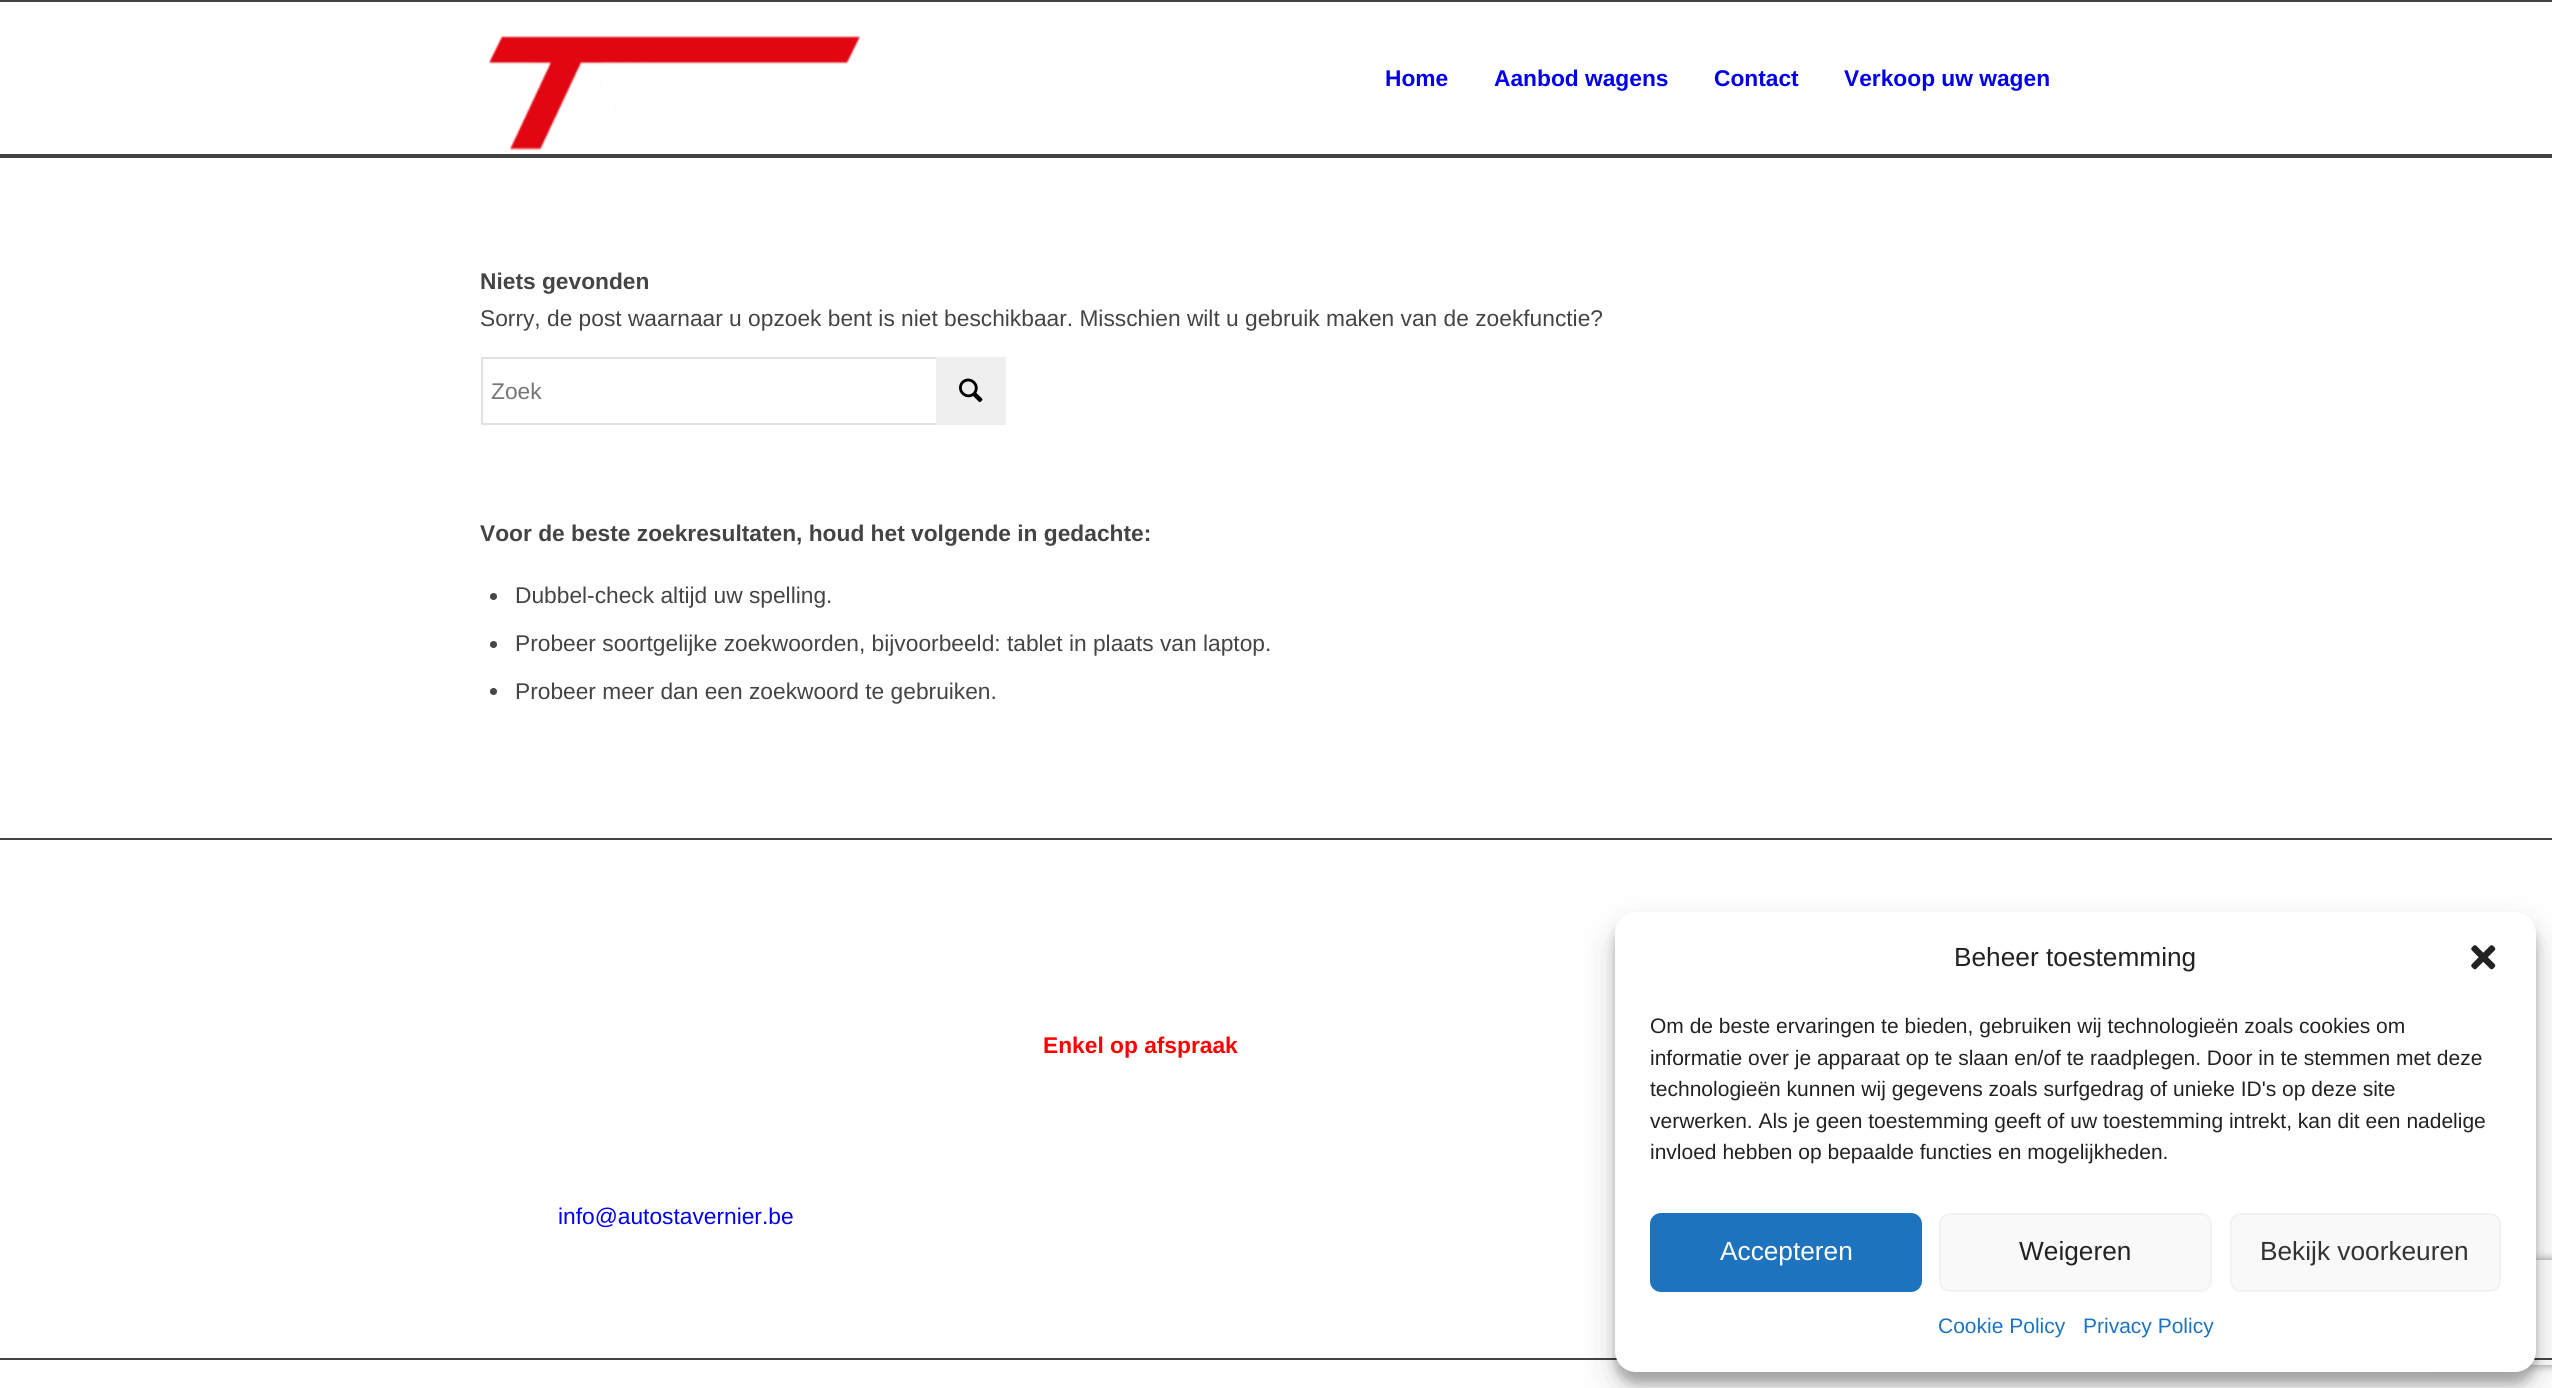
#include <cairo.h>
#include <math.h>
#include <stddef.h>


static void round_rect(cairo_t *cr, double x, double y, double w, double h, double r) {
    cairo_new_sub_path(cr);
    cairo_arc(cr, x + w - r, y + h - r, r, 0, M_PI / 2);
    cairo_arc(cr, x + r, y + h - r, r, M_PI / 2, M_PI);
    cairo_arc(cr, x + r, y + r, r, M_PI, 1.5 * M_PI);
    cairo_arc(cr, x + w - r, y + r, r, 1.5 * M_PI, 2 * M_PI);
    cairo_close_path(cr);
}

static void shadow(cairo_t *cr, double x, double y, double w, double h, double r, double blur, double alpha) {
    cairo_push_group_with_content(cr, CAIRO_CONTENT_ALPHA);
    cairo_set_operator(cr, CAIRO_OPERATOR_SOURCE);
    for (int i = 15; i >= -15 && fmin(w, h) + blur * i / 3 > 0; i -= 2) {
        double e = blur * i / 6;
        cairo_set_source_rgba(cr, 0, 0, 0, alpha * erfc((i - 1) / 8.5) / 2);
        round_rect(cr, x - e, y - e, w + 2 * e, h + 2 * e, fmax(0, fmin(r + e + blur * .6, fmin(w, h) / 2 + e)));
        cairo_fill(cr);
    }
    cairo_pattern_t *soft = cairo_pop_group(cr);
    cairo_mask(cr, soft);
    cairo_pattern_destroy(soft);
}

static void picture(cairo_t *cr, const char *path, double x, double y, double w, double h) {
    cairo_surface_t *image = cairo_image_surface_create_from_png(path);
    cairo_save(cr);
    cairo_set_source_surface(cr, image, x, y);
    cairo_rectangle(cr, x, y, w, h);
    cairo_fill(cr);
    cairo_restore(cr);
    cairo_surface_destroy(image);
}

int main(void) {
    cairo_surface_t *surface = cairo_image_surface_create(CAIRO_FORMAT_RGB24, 2552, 1388);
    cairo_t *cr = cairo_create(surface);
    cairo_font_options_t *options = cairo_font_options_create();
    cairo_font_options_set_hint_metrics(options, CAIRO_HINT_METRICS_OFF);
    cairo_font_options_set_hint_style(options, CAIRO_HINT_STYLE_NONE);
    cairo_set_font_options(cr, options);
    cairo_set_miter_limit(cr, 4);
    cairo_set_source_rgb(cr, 1, 1, 1);
    cairo_paint(cr);
    cairo_set_source_rgb(cr, 0.267, 0.267, 0.267);
    cairo_rectangle(cr, 0, 0, 2552, 2);
    cairo_fill(cr);
    picture(cr, "img1.png", 488, 35, 373, 116);
    cairo_select_font_face(cr, "Liberation Sans", CAIRO_FONT_SLANT_NORMAL, CAIRO_FONT_WEIGHT_BOLD);
    cairo_set_font_size(cr, 22.75);
    cairo_set_source_rgb(cr, 0, 0, 0.933);
    cairo_move_to(cr, 1385, 86);
    cairo_show_text(cr, "Home");
    cairo_move_to(cr, 1494, 86);
    cairo_show_text(cr, "Aanbod wagens");
    cairo_move_to(cr, 1714, 86);
    cairo_show_text(cr, "Contact");
    cairo_move_to(cr, 1844, 86);
    cairo_show_text(cr, "Verkoop uw wagen");
    cairo_set_source_rgb(cr, 0.267, 0.267, 0.267);
    cairo_rectangle(cr, 0, 154, 2552, 4);
    cairo_fill(cr);
    cairo_move_to(cr, 480, 289);
    cairo_show_text(cr, "Niets gevonden");
    cairo_select_font_face(cr, "Liberation Sans", CAIRO_FONT_SLANT_NORMAL, CAIRO_FONT_WEIGHT_NORMAL);
    cairo_move_to(cr, 480, 326);
    cairo_show_text(cr, "Sorry, de post waarnaar u opzoek bent is niet beschikbaar. Misschien wilt u gebruik maken van de zoekfunctie?");
    cairo_rectangle(cr, 482, 358, 523, 66);
    cairo_set_source_rgb(cr, 0.882, 0.882, 0.882);
    cairo_stroke(cr);
    cairo_set_source_rgb(cr, 0.459, 0.459, 0.459);
    cairo_move_to(cr, 491, 399);
    cairo_show_text(cr, "Zoek");
    cairo_set_source_rgb(cr, 0.937, 0.937, 0.937);
    cairo_rectangle(cr, 936, 357, 70, 68);
    cairo_fill(cr);
    picture(cr, "img2.png", 959, 378, 24, 25);
    cairo_select_font_face(cr, "Liberation Sans", CAIRO_FONT_SLANT_NORMAL, CAIRO_FONT_WEIGHT_BOLD);
    cairo_set_source_rgb(cr, 0.267, 0.267, 0.267);
    cairo_move_to(cr, 480, 541);
    cairo_show_text(cr, "Voor de beste zoekresultaten, houd het volgende in gedachte:");
    cairo_new_path(cr);
    cairo_arc(cr, 493.5, 596.5, 3.5, 0, 2 * M_PI);
    cairo_fill(cr);
    cairo_select_font_face(cr, "Liberation Sans", CAIRO_FONT_SLANT_NORMAL, CAIRO_FONT_WEIGHT_NORMAL);
    cairo_move_to(cr, 515, 603);
    cairo_show_text(cr, "Dubbel-check altijd uw spelling.");
    cairo_new_path(cr);
    cairo_arc(cr, 493.5, 644.5, 3.5, 0, 2 * M_PI);
    cairo_fill(cr);
    cairo_move_to(cr, 515, 651);
    cairo_show_text(cr, "Probeer soortgelijke zoekwoorden, bijvoorbeeld: tablet in plaats van laptop.");
    cairo_new_path(cr);
    cairo_arc(cr, 493.5, 691.5, 3.5, 0, 2 * M_PI);
    cairo_fill(cr);
    cairo_move_to(cr, 515, 699);
    cairo_show_text(cr, "Probeer meer dan een zoekwoord te gebruiken.");
    cairo_rectangle(cr, 0, 838, 2552, 2);
    cairo_fill(cr);
    cairo_select_font_face(cr, "Liberation Sans", CAIRO_FONT_SLANT_NORMAL, CAIRO_FONT_WEIGHT_BOLD);
    cairo_set_source_rgb(cr, 1, 0, 0);
    cairo_move_to(cr, 1043, 1053);
    cairo_show_text(cr, "Enkel op afspraak");
    cairo_select_font_face(cr, "Liberation Sans", CAIRO_FONT_SLANT_NORMAL, CAIRO_FONT_WEIGHT_NORMAL);
    cairo_set_source_rgb(cr, 0, 0, 0.933);
    cairo_move_to(cr, 558, 1224);
    cairo_show_text(cr, "info@autostavernier.be");
    cairo_set_source_rgb(cr, 0.267, 0.267, 0.267);
    cairo_rectangle(cr, 0, 1358, 2552, 2);
    cairo_fill(cr);
    cairo_set_source_rgb(cr, 0, 0, 0);
    shadow(cr, 1615, 922, 921, 461, 21, 5, 0.23);
    shadow(cr, 1615, 929, 921, 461, 21, 17.5, 0.19);
    cairo_save(cr);
    cairo_set_fill_rule(cr, CAIRO_FILL_RULE_EVEN_ODD);
    cairo_new_path(cr);
    cairo_move_to(cr, 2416, 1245);
    cairo_line_to(cr, 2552, 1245);
    cairo_line_to(cr, 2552, 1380);
    cairo_line_to(cr, 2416, 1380);
    cairo_close_path(cr);
    cairo_move_to(cr, 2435, 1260);
    cairo_line_to(cr, 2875, 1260);
    cairo_curve_to(cr, 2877, 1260, 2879, 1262, 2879, 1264);
    cairo_line_to(cr, 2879, 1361);
    cairo_curve_to(cr, 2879, 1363, 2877, 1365, 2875, 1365);
    cairo_line_to(cr, 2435, 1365);
    cairo_curve_to(cr, 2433, 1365, 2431, 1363, 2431, 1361);
    cairo_line_to(cr, 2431, 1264);
    cairo_curve_to(cr, 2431, 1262, 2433, 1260, 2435, 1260);
    cairo_close_path(cr);
    cairo_clip(cr);
    cairo_set_source_rgb(cr, 0.502, 0.502, 0.502);
    shadow(cr, 2431, 1260, 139, 105, 4, 4.5, 1);
    cairo_restore(cr);
    cairo_set_source_rgb(cr, 1, 1, 1);
    round_rect(cr, 1615, 912, 921, 460, 21);
    cairo_fill(cr);
    cairo_set_font_size(cr, 26.25);
    cairo_set_source_rgb(cr, 0.133, 0.133, 0.133);
    cairo_move_to(cr, 1954, 966);
    cairo_show_text(cr, "Beheer toestemming");
    picture(cr, "img3.png", 2471, 945, 25, 25);
    cairo_set_font_size(cr, 21);
    cairo_move_to(cr, 1650, 1033);
    cairo_show_text(cr, "Om de beste ervaringen te bieden, gebruiken wij technologieën zoals cookies om");
    cairo_move_to(cr, 1650, 1065);
    cairo_show_text(cr, "informatie over je apparaat op te slaan en/of te raadplegen. Door in te stemmen met deze");
    cairo_move_to(cr, 1650, 1096);
    cairo_show_text(cr, "technologieën kunnen wij gegevens zoals surfgedrag of unieke ID's op deze site");
    cairo_move_to(cr, 1650, 1128);
    cairo_show_text(cr, "verwerken. Als je geen toestemming geeft of uw toestemming intrekt, kan dit een nadelige");
    cairo_move_to(cr, 1650, 1159);
    cairo_show_text(cr, "invloed hebben op bepaalde functies en mogelijkheden.");
    cairo_set_source_rgb(cr, 0.118, 0.451, 0.745);
    round_rect(cr, 1651, 1214, 270, 77, 10);
    cairo_fill_preserve(cr);
    cairo_stroke(cr);
    cairo_set_font_size(cr, 26.25);
    cairo_set_source_rgb(cr, 1, 1, 1);
    cairo_move_to(cr, 1720, 1260);
    cairo_show_text(cr, "Accepteren");
    cairo_set_source_rgb(cr, 0.976, 0.976, 0.976);
    round_rect(cr, 1940, 1214, 271, 77, 10);
    cairo_fill_preserve(cr);
    cairo_set_source_rgb(cr, 0.949, 0.949, 0.949);
    cairo_stroke(cr);
    cairo_set_source_rgb(cr, 0.133, 0.133, 0.133);
    cairo_move_to(cr, 2019, 1260);
    cairo_show_text(cr, "Weigeren");
    cairo_set_source_rgb(cr, 0.976, 0.976, 0.976);
    round_rect(cr, 2231, 1214, 269, 77, 10);
    cairo_fill_preserve(cr);
    cairo_set_source_rgb(cr, 0.949, 0.949, 0.949);
    cairo_stroke(cr);
    cairo_set_source_rgb(cr, 0.2, 0.2, 0.2);
    cairo_move_to(cr, 2260, 1260);
    cairo_show_text(cr, "Bekijk voorkeuren");
    cairo_set_font_size(cr, 21);
    cairo_set_source_rgb(cr, 0.118, 0.451, 0.745);
    cairo_move_to(cr, 1938, 1333);
    cairo_show_text(cr, "Cookie Policy");
    cairo_move_to(cr, 2083, 1333);
    cairo_show_text(cr, "Privacy Policy");
    cairo_surface_write_to_png(surface, "page.png");
    cairo_font_options_destroy(options);
    cairo_destroy(cr);
    cairo_surface_destroy(surface);
    return 0;
}
